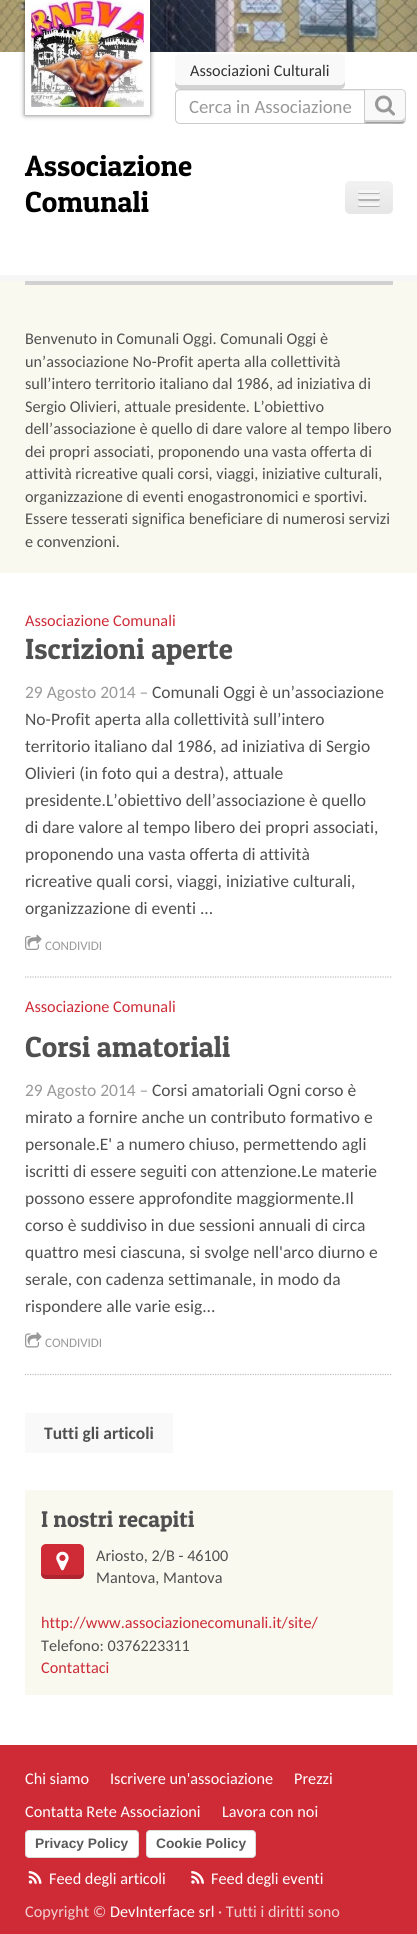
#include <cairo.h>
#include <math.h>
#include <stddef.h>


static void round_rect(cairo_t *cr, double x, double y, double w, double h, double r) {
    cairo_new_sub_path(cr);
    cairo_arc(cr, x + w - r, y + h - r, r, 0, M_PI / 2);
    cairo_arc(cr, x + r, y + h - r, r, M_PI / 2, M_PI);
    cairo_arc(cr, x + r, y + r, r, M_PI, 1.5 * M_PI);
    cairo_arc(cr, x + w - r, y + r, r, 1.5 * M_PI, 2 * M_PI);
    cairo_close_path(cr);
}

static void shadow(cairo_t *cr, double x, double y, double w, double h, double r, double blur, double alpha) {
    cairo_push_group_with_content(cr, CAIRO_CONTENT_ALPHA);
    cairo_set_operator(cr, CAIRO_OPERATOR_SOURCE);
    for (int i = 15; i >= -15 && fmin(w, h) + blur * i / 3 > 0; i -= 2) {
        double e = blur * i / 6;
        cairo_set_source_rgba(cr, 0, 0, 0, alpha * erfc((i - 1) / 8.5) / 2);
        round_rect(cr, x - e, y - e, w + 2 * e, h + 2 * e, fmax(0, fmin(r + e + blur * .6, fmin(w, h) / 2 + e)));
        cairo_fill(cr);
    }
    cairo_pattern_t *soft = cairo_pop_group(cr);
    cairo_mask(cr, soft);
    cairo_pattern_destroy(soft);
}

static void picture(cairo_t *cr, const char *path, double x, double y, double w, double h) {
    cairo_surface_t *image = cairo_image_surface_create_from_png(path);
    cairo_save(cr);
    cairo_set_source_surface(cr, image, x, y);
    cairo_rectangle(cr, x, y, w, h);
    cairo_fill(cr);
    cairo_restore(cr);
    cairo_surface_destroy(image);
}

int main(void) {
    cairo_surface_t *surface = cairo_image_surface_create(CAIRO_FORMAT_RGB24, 417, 1934);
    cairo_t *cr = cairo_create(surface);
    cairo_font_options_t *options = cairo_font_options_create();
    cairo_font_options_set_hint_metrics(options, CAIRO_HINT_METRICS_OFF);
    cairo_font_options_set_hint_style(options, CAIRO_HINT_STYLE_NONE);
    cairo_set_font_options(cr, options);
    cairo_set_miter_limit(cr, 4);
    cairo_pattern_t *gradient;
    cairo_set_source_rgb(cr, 1, 1, 1);
    cairo_paint(cr);
    picture(cr, "img1.png", 0, 0, 417, 52);
    cairo_set_source_rgb(cr, 0, 0, 0);
    shadow(cr, 25, -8, 125, 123, 0, 2.5, 0.6);
    cairo_set_source_rgb(cr, 1, 1, 1);
    cairo_rectangle(cr, 25, 0, 125, 115);
    cairo_fill(cr);
    picture(cr, "img2.png", 31, 0, 113, 107);
    cairo_set_source_rgb(cr, 0.973, 0.973, 0.973);
    round_rect(cr, 175, 54, 170, 35, 5);
    cairo_fill(cr);
    cairo_set_source_rgb(cr, 0.827, 0.827, 0.827);
    cairo_new_path(cr);
    cairo_move_to(cr, 175, 80);
    cairo_line_to(cr, 175, 84);
    cairo_curve_to(cr, 175, 87, 177, 89, 180, 89);
    cairo_line_to(cr, 340, 89);
    cairo_curve_to(cr, 343, 89, 345, 87, 345, 84);
    cairo_line_to(cr, 345, 80);
    cairo_curve_to(cr, 345, 83, 343, 85, 340, 85);
    cairo_line_to(cr, 180, 85);
    cairo_curve_to(cr, 177, 85, 175, 83, 175, 80);
    cairo_close_path(cr);
    cairo_fill(cr);
    cairo_select_font_face(cr, "Carlito", CAIRO_FONT_SLANT_NORMAL, CAIRO_FONT_WEIGHT_NORMAL);
    cairo_set_font_size(cr, 16.25);
    cairo_set_source_rgb(cr, 0.2, 0.2, 0.2);
    cairo_move_to(cr, 190, 76);
    cairo_show_text(cr, "Associazioni Culturali");
    cairo_set_source_rgb(cr, 0.973, 0.973, 0.973);
    cairo_new_path(cr);
    cairo_move_to(cr, 364, 89);
    cairo_line_to(cr, 401, 89);
    cairo_curve_to(cr, 404, 89, 406, 91, 406, 94);
    cairo_line_to(cr, 406, 119);
    cairo_curve_to(cr, 406, 122, 404, 124, 401, 124);
    cairo_line_to(cr, 364, 124);
    cairo_close_path(cr);
    cairo_fill(cr);
    cairo_set_source_rgb(cr, 0.827, 0.827, 0.827);
    cairo_new_path(cr);
    cairo_move_to(cr, 365, 120);
    cairo_line_to(cr, 365, 123);
    cairo_line_to(cr, 389, 123);
    cairo_curve_to(cr, 398, 123, 405, 126, 405, 116);
    cairo_curve_to(cr, 405, 118, 403, 120, 401, 120);
    cairo_close_path(cr);
    cairo_move_to(cr, 364, 89);
    cairo_line_to(cr, 365, 90);
    cairo_line_to(cr, 401, 90);
    cairo_curve_to(cr, 402, 90, 403, 90, 404, 91);
    cairo_line_to(cr, 405, 90);
    cairo_curve_to(cr, 404, 90, 402, 89, 401, 89);
    cairo_close_path(cr);
    cairo_fill(cr);
    cairo_new_path(cr);
    cairo_move_to(cr, 404.5, 90.5);
    cairo_curve_to(cr, 405.5, 91, 406, 92.5, 406, 94);
    cairo_line_to(cr, 406, 119);
    cairo_curve_to(cr, 406, 120.5, 405.5, 121.5, 405, 122.5);
    cairo_line_to(cr, 404, 121);
    cairo_curve_to(cr, 404.5, 121, 405, 120, 405, 119);
    cairo_line_to(cr, 405, 94);
    cairo_curve_to(cr, 405, 93, 404.5, 92, 404, 91);
    cairo_close_path(cr);
    cairo_fill(cr);
    cairo_set_source_rgba(cr, 0, 0, 0, 0.25);
    cairo_new_path(cr);
    cairo_move_to(cr, 364, 124);
    cairo_line_to(cr, 366, 122);
    cairo_line_to(cr, 401, 122);
    cairo_line_to(cr, 404, 121);
    cairo_line_to(cr, 405, 122);
    cairo_line_to(cr, 403, 124);
    cairo_close_path(cr);
    cairo_fill(cr);
    cairo_set_source_rgb(cr, 1, 1, 1);
    cairo_new_path(cr);
    cairo_move_to(cr, 180, 89);
    cairo_line_to(cr, 365, 89);
    cairo_line_to(cr, 365, 124);
    cairo_line_to(cr, 180, 124);
    cairo_curve_to(cr, 177, 124, 175, 122, 175, 119);
    cairo_line_to(cr, 175, 94);
    cairo_curve_to(cr, 175, 91, 177, 89, 180, 89);
    cairo_close_path(cr);
    cairo_fill(cr);
    cairo_set_source_rgb(cr, 0.925, 0.925, 0.925);
    cairo_new_path(cr);
    cairo_move_to(cr, 180, 91);
    cairo_line_to(cr, 364, 91);
    cairo_line_to(cr, 364, 90);
    cairo_line_to(cr, 179, 90);
    cairo_curve_to(cr, 177, 91, 176, 93, 176, 95);
    cairo_curve_to(cr, 176, 93, 178, 91, 180, 91);
    cairo_close_path(cr);
    cairo_fill(cr);
    cairo_new_path(cr);
    cairo_move_to(cr, 180, 89.5);
    cairo_line_to(cr, 364.5, 89.5);
    cairo_line_to(cr, 364.5, 123.5);
    cairo_line_to(cr, 180, 123.5);
    cairo_curve_to(cr, 177.5, 123.5, 175.5, 121.5, 175.5, 119);
    cairo_line_to(cr, 175.5, 94);
    cairo_curve_to(cr, 175.5, 91.5, 177.5, 89.5, 180, 89.5);
    cairo_close_path(cr);
    cairo_set_source_rgb(cr, 0.8, 0.8, 0.8);
    cairo_set_line_width(cr, 1);
    cairo_stroke(cr);
    cairo_set_font_size(cr, 18.75);
    cairo_set_source_rgb(cr, 0.6, 0.6, 0.6);
    cairo_move_to(cr, 189, 113);
    cairo_show_text(cr, "Cerca in Associazione");
    picture(cr, "img3.png", 375, 95, 20, 21);
    cairo_select_font_face(cr, "Patua One", CAIRO_FONT_SLANT_NORMAL, CAIRO_FONT_WEIGHT_NORMAL);
    cairo_set_font_size(cr, 29.25);
    cairo_set_source_rgb(cr, 0, 0, 0);
    cairo_move_to(cr, 25, 176);
    cairo_show_text(cr, "Associazione");
    cairo_move_to(cr, 25, 212);
    cairo_show_text(cr, "Comunali");
    gradient = cairo_pattern_create_linear(369, 181, 369, 214);
    cairo_pattern_add_color_stop_rgba(gradient, 0, 0.949, 0.949, 0.949, 1);
    cairo_pattern_add_color_stop_rgba(gradient, 1, 0.902, 0.902, 0.902, 1);
    cairo_set_source(cr, gradient);
    cairo_pattern_destroy(gradient);
    round_rect(cr, 345, 181, 48, 33, 5);
    cairo_fill(cr);
    cairo_set_source_rgb(cr, 0.698, 0.698, 0.698);
    cairo_new_path(cr);
    cairo_move_to(cr, 358, 192.5);
    cairo_curve_to(cr, 357.5, 194.5, 361.5, 194, 362.5, 194);
    cairo_line_to(cr, 375.5, 194);
    cairo_curve_to(cr, 376, 194, 381, 194.5, 380, 192);
    cairo_line_to(cr, 379, 192.5);
    cairo_curve_to(cr, 377, 192.5, 358.5, 192.5, 358, 192.5);
    cairo_close_path(cr);
    cairo_fill(cr);
    cairo_set_source_rgb(cr, 0.961, 0.961, 0.961);
    round_rect(cr, 358, 190, 22, 3, 1.5);
    cairo_fill(cr);
    cairo_set_source_rgb(cr, 0.69, 0.69, 0.69);
    cairo_new_path(cr);
    cairo_move_to(cr, 358.5, 198.5);
    cairo_curve_to(cr, 356.5, 201.5, 362, 201, 362.5, 201);
    cairo_line_to(cr, 369, 201);
    cairo_curve_to(cr, 371, 201, 379, 201.5, 379.5, 200.5);
    cairo_curve_to(cr, 380, 200, 380, 199, 379.5, 198.5);
    cairo_curve_to(cr, 379, 199, 359.5, 199, 358.5, 198.5);
    cairo_close_path(cr);
    cairo_fill(cr);
    cairo_set_source_rgb(cr, 0.961, 0.961, 0.961);
    round_rect(cr, 358, 196, 22, 3, 1.5);
    cairo_fill(cr);
    cairo_set_source_rgb(cr, 0.686, 0.686, 0.686);
    cairo_new_path(cr);
    cairo_move_to(cr, 358, 205);
    cairo_curve_to(cr, 357, 207.5, 362, 207, 362.5, 207);
    cairo_line_to(cr, 375.5, 207);
    cairo_curve_to(cr, 375.5, 207, 382, 207.5, 379.5, 204.5);
    cairo_line_to(cr, 379, 205);
    cairo_close_path(cr);
    cairo_fill(cr);
    cairo_set_source_rgb(cr, 0.961, 0.961, 0.961);
    round_rect(cr, 358, 203, 22, 3, 1.5);
    cairo_fill(cr);
    cairo_set_source_rgb(cr, 0.973, 0.973, 0.941);
    cairo_rectangle(cr, 0, 281, 417, 292);
    cairo_fill(cr);
    cairo_set_source_rgb(cr, 0.961, 0.961, 0.961);
    cairo_rectangle(cr, 0, 275, 417, 6);
    cairo_fill(cr);
    cairo_set_source_rgb(cr, 0.82, 0.82, 0.82);
    cairo_rectangle(cr, 25, 281, 368, 4);
    cairo_fill(cr);
    cairo_select_font_face(cr, "Carlito", CAIRO_FONT_SLANT_NORMAL, CAIRO_FONT_WEIGHT_NORMAL);
    cairo_set_font_size(cr, 16.25);
    cairo_set_source_rgb(cr, 0.314, 0.314, 0.314);
    cairo_move_to(cr, 25, 344);
    cairo_show_text(cr, "Benvenuto in Comunali Oggi. Comunali Oggi è");
    cairo_move_to(cr, 25, 367);
    cairo_show_text(cr, "un’associazione No-Profit aperta alla collettività");
    cairo_move_to(cr, 25, 389);
    cairo_show_text(cr, "sull’intero territorio italiano dal 1986, ad iniziativa di");
    cairo_move_to(cr, 25, 412);
    cairo_show_text(cr, "Sergio Olivieri, attuale presidente. L’obiettivo");
    cairo_move_to(cr, 25, 434);
    cairo_show_text(cr, "dell’associazione è quello di dare valore al tempo libero");
    cairo_move_to(cr, 25, 457);
    cairo_show_text(cr, "dei propri associati, proponendo una vasta offerta di");
    cairo_move_to(cr, 25, 479);
    cairo_show_text(cr, "attività ricreative quali corsi, viaggi, iniziative culturali,");
    cairo_move_to(cr, 25, 502);
    cairo_show_text(cr, "organizzazione di eventi enogastronomici e sportivi.");
    cairo_move_to(cr, 25, 524);
    cairo_show_text(cr, "Essere tesserati significa beneficiare di numerosi servizi");
    cairo_move_to(cr, 25, 547);
    cairo_show_text(cr, "e convenzioni.");
    cairo_new_path(cr);
    cairo_move_to(cr, 25, 977);
    cairo_line_to(cr, 392.5, 977);
    cairo_set_source_rgb(cr, 0.749, 0.749, 0.749);
    cairo_set_line_width(cr, 1.2);
    cairo_set_dash(cr, (double[]){1.25, 1.25}, 2, 0);
    cairo_stroke(cr);
    cairo_set_source_rgb(cr, 0.808, 0.169, 0.216);
    cairo_move_to(cr, 25, 626);
    cairo_show_text(cr, "Associazione Comunali");
    cairo_select_font_face(cr, "Patua One", CAIRO_FONT_SLANT_NORMAL, CAIRO_FONT_WEIGHT_NORMAL);
    cairo_set_font_size(cr, 29.25);
    cairo_set_source_rgb(cr, 0.314, 0.314, 0.314);
    cairo_move_to(cr, 25, 659);
    cairo_show_text(cr, "Iscrizioni aperte");
    cairo_select_font_face(cr, "Carlito", CAIRO_FONT_SLANT_NORMAL, CAIRO_FONT_WEIGHT_NORMAL);
    cairo_set_font_size(cr, 17.5);
    cairo_set_source_rgb(cr, 0.6, 0.6, 0.6);
    cairo_move_to(cr, 25, 698);
    cairo_show_text(cr, "29 Agosto 2014 –");
    cairo_set_source_rgb(cr, 0.314, 0.314, 0.314);
    cairo_move_to(cr, 152, 698);
    cairo_show_text(cr, "Comunali Oggi è un’associazione");
    cairo_move_to(cr, 25, 725);
    cairo_show_text(cr, "No-Profit aperta alla collettività sull’intero");
    cairo_move_to(cr, 25, 752);
    cairo_show_text(cr, "territorio italiano dal 1986, ad iniziativa di Sergio");
    cairo_move_to(cr, 25, 779);
    cairo_show_text(cr, "Olivieri (in foto qui a destra), attuale");
    cairo_move_to(cr, 25, 806);
    cairo_show_text(cr, "presidente.L’obiettivo dell’associazione è quello");
    cairo_move_to(cr, 25, 833);
    cairo_show_text(cr, "di dare valore al tempo libero dei propri associati,");
    cairo_move_to(cr, 25, 860);
    cairo_show_text(cr, "proponendo una vasta offerta di attività");
    cairo_move_to(cr, 25, 887);
    cairo_show_text(cr, "ricreative quali corsi, viaggi, iniziative culturali,");
    cairo_move_to(cr, 25, 914);
    cairo_show_text(cr, "organizzazione di eventi ...");
    picture(cr, "img4.png", 25, 934, 17, 16);
    cairo_set_font_size(cr, 13);
    cairo_set_source_rgb(cr, 0.6, 0.6, 0.6);
    cairo_move_to(cr, 45, 950);
    cairo_show_text(cr, "CONDIVIDI");
    cairo_new_path(cr);
    cairo_move_to(cr, 25, 1374.5);
    cairo_line_to(cr, 392.5, 1374.5);
    cairo_set_source_rgb(cr, 0.749, 0.749, 0.749);
    cairo_stroke(cr);
    cairo_set_font_size(cr, 16.25);
    cairo_set_source_rgb(cr, 0.808, 0.169, 0.216);
    cairo_move_to(cr, 25, 1012);
    cairo_show_text(cr, "Associazione Comunali");
    cairo_select_font_face(cr, "Patua One", CAIRO_FONT_SLANT_NORMAL, CAIRO_FONT_WEIGHT_NORMAL);
    cairo_set_font_size(cr, 29.25);
    cairo_set_source_rgb(cr, 0.314, 0.314, 0.314);
    cairo_move_to(cr, 25, 1057);
    cairo_show_text(cr, "Corsi amatoriali");
    cairo_select_font_face(cr, "Carlito", CAIRO_FONT_SLANT_NORMAL, CAIRO_FONT_WEIGHT_NORMAL);
    cairo_set_font_size(cr, 17.5);
    cairo_set_source_rgb(cr, 0.6, 0.6, 0.6);
    cairo_move_to(cr, 25, 1096);
    cairo_show_text(cr, "29 Agosto 2014 –");
    cairo_set_source_rgb(cr, 0.314, 0.314, 0.314);
    cairo_move_to(cr, 152, 1096);
    cairo_show_text(cr, "Corsi amatoriali Ogni corso è");
    cairo_move_to(cr, 25, 1123);
    cairo_show_text(cr, "mirato a fornire anche un contributo formativo e");
    cairo_move_to(cr, 25, 1150);
    cairo_show_text(cr, "personale.E' a numero chiuso, permettendo agli");
    cairo_move_to(cr, 25, 1177);
    cairo_show_text(cr, "iscritti di essere seguiti con attenzione.Le materie");
    cairo_move_to(cr, 25, 1204);
    cairo_show_text(cr, "possono essere approfondite maggiormente.Il");
    cairo_move_to(cr, 25, 1231);
    cairo_show_text(cr, "corso è suddiviso in due sessioni annuali di circa");
    cairo_move_to(cr, 25, 1258);
    cairo_show_text(cr, "quattro mesi ciascuna, si svolge nell'arco diurno e");
    cairo_move_to(cr, 25, 1285);
    cairo_show_text(cr, "serale, con cadenza settimanale, in modo da");
    cairo_move_to(cr, 25, 1312);
    cairo_show_text(cr, "rispondere alle varie esig...");
    picture(cr, "img5.png", 25, 1332, 17, 16);
    cairo_set_font_size(cr, 13);
    cairo_set_source_rgb(cr, 0.6, 0.6, 0.6);
    cairo_move_to(cr, 45, 1347);
    cairo_show_text(cr, "CONDIVIDI");
    cairo_set_source_rgb(cr, 0.973, 0.973, 0.973);
    cairo_rectangle(cr, 25, 1413, 148, 40);
    cairo_fill(cr);
    cairo_select_font_face(cr, "Carlito", CAIRO_FONT_SLANT_NORMAL, CAIRO_FONT_WEIGHT_BOLD);
    cairo_set_font_size(cr, 17.5);
    cairo_set_source_rgb(cr, 0.314, 0.314, 0.314);
    cairo_move_to(cr, 44, 1439);
    cairo_show_text(cr, "Tutti gli articoli");
    cairo_set_source_rgb(cr, 0.973, 0.973, 0.941);
    cairo_rectangle(cr, 25, 1490, 368, 205);
    cairo_fill(cr);
    cairo_select_font_face(cr, "Patua One", CAIRO_FONT_SLANT_NORMAL, CAIRO_FONT_WEIGHT_NORMAL);
    cairo_set_font_size(cr, 22.75);
    cairo_set_source_rgb(cr, 0.314, 0.314, 0.314);
    cairo_move_to(cr, 41, 1527);
    cairo_show_text(cr, "I nostri recapiti");
    cairo_set_source_rgb(cr, 0.808, 0.169, 0.216);
    round_rect(cr, 41, 1544, 43, 35, 5);
    cairo_fill(cr);
    cairo_set_source_rgba(cr, 0, 0, 0, 0.15);
    cairo_new_path(cr);
    cairo_move_to(cr, 41, 1570);
    cairo_curve_to(cr, 41, 1579, 43, 1579, 52, 1579);
    cairo_line_to(cr, 74, 1579);
    cairo_curve_to(cr, 82, 1579, 84, 1579, 84, 1570);
    cairo_curve_to(cr, 84, 1573, 82, 1575, 79, 1575);
    cairo_line_to(cr, 46, 1575);
    cairo_curve_to(cr, 43, 1575, 41, 1573, 41, 1570);
    cairo_close_path(cr);
    cairo_fill(cr);
    picture(cr, "img6.png", 56, 1551, 13, 20);
    cairo_select_font_face(cr, "Carlito", CAIRO_FONT_SLANT_NORMAL, CAIRO_FONT_WEIGHT_NORMAL);
    cairo_set_font_size(cr, 16.25);
    cairo_set_source_rgb(cr, 0.314, 0.314, 0.314);
    cairo_move_to(cr, 96, 1561);
    cairo_show_text(cr, "Ariosto, 2/B - 46100");
    cairo_move_to(cr, 96, 1583);
    cairo_show_text(cr, "Mantova, Mantova");
    cairo_set_source_rgb(cr, 0.808, 0.169, 0.216);
    cairo_move_to(cr, 41, 1628);
    cairo_show_text(cr, "http://www.associazionecomunali.it/site/");
    cairo_set_source_rgb(cr, 0.314, 0.314, 0.314);
    cairo_move_to(cr, 41, 1651);
    cairo_show_text(cr, "Telefono: 0376223311");
    cairo_set_source_rgb(cr, 0.808, 0.169, 0.216);
    cairo_move_to(cr, 41, 1673);
    cairo_show_text(cr, "Contattaci");
    cairo_rectangle(cr, 0, 1745, 417, 189);
    cairo_fill(cr);
    cairo_set_source_rgb(cr, 1, 1, 1);
    cairo_move_to(cr, 25, 1784);
    cairo_show_text(cr, "Chi siamo");
    cairo_move_to(cr, 110, 1784);
    cairo_show_text(cr, "Iscrivere un'associazione");
    cairo_move_to(cr, 294, 1784);
    cairo_show_text(cr, "Prezzi");
    cairo_move_to(cr, 25, 1817);
    cairo_show_text(cr, "Contatta Rete Associazioni");
    cairo_move_to(cr, 222, 1817);
    cairo_show_text(cr, "Lavora con noi");
    cairo_set_source_rgb(cr, 0, 0, 0);
    shadow(cr, 26, 1833, 112, 25, 2.5, 0.5, 0.15);
    cairo_set_source_rgb(cr, 1, 1, 1);
    round_rect(cr, 25, 1830, 114, 28, 4);
    cairo_fill(cr);
    round_rect(cr, 25.5, 1830.5, 113, 27, 3.5);
    cairo_set_source_rgba(cr, 0, 0, 0, 0.15);
    cairo_set_line_width(cr, 1);
    cairo_set_dash(cr, NULL, 0, 0);
    cairo_stroke(cr);
    cairo_select_font_face(cr, "Liberation Sans", CAIRO_FONT_SLANT_NORMAL, CAIRO_FONT_WEIGHT_BOLD);
    cairo_set_font_size(cr, 13.75);
    cairo_set_source_rgb(cr, 0.349, 0.349, 0.349);
    cairo_move_to(cr, 35, 1848);
    cairo_show_text(cr, "Privacy Policy");
    cairo_set_source_rgb(cr, 0, 0, 0);
    shadow(cr, 148, 1833, 107, 25, 2.5, 0.5, 0.15);
    cairo_set_source_rgb(cr, 1, 1, 1);
    round_rect(cr, 146, 1830, 110, 28, 4);
    cairo_fill(cr);
    round_rect(cr, 146.5, 1830.5, 109, 27, 3.5);
    cairo_set_source_rgba(cr, 0, 0, 0, 0.15);
    cairo_stroke(cr);
    cairo_set_source_rgb(cr, 0.349, 0.349, 0.349);
    cairo_move_to(cr, 156, 1848);
    cairo_show_text(cr, "Cookie Policy");
    picture(cr, "img7.png", 28, 1871, 14, 13);
    cairo_select_font_face(cr, "Carlito", CAIRO_FONT_SLANT_NORMAL, CAIRO_FONT_WEIGHT_NORMAL);
    cairo_set_font_size(cr, 16.25);
    cairo_set_source_rgb(cr, 1, 1, 1);
    cairo_move_to(cr, 49, 1884);
    cairo_show_text(cr, "Feed degli articoli");
    picture(cr, "img8.png", 191, 1871, 13, 13);
    cairo_move_to(cr, 211, 1884);
    cairo_show_text(cr, "Feed degli eventi");
    cairo_set_source_rgb(cr, 0.945, 0.812, 0.82);
    cairo_move_to(cr, 25, 1917);
    cairo_show_text(cr, "Copyright ©");
    cairo_set_source_rgb(cr, 1, 1, 1);
    cairo_move_to(cr, 110, 1917);
    cairo_show_text(cr, "DevInterface srl");
    cairo_set_source_rgb(cr, 0.945, 0.812, 0.82);
    cairo_move_to(cr, 218, 1917);
    cairo_show_text(cr, "· Tutti i diritti sono");
    cairo_surface_write_to_png(surface, "page.png");
    cairo_font_options_destroy(options);
    cairo_destroy(cr);
    cairo_surface_destroy(surface);
    return 0;
}
